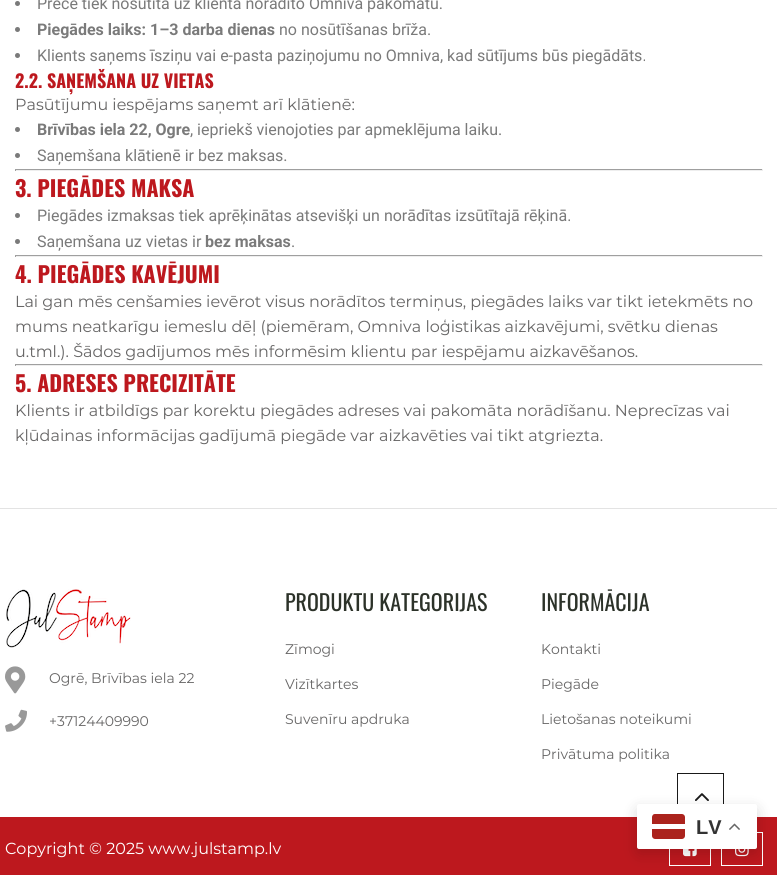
#include <cairo.h>
#include <math.h>
#include <stddef.h>


static void round_rect(cairo_t *cr, double x, double y, double w, double h, double r) {
    cairo_new_sub_path(cr);
    cairo_arc(cr, x + w - r, y + h - r, r, 0, M_PI / 2);
    cairo_arc(cr, x + r, y + h - r, r, M_PI / 2, M_PI);
    cairo_arc(cr, x + r, y + r, r, M_PI, 1.5 * M_PI);
    cairo_arc(cr, x + w - r, y + r, r, 1.5 * M_PI, 2 * M_PI);
    cairo_close_path(cr);
}

static void shadow(cairo_t *cr, double x, double y, double w, double h, double r, double blur, double alpha) {
    cairo_push_group_with_content(cr, CAIRO_CONTENT_ALPHA);
    cairo_set_operator(cr, CAIRO_OPERATOR_SOURCE);
    for (int i = 15; i >= -15 && fmin(w, h) + blur * i / 3 > 0; i -= 2) {
        double e = blur * i / 6;
        cairo_set_source_rgba(cr, 0, 0, 0, alpha * erfc((i - 1) / 8.5) / 2);
        round_rect(cr, x - e, y - e, w + 2 * e, h + 2 * e, fmax(0, fmin(r + e + blur * .6, fmin(w, h) / 2 + e)));
        cairo_fill(cr);
    }
    cairo_pattern_t *soft = cairo_pop_group(cr);
    cairo_mask(cr, soft);
    cairo_pattern_destroy(soft);
}

static void picture(cairo_t *cr, const char *path, double x, double y, double w, double h) {
    cairo_surface_t *image = cairo_image_surface_create_from_png(path);
    cairo_save(cr);
    cairo_set_source_surface(cr, image, x, y);
    cairo_rectangle(cr, x, y, w, h);
    cairo_fill(cr);
    cairo_restore(cr);
    cairo_surface_destroy(image);
}

int main(void) {
    cairo_surface_t *surface = cairo_image_surface_create(CAIRO_FORMAT_RGB24, 777, 875);
    cairo_t *cr = cairo_create(surface);
    cairo_font_options_t *options = cairo_font_options_create();
    cairo_font_options_set_hint_metrics(options, CAIRO_HINT_METRICS_OFF);
    cairo_font_options_set_hint_style(options, CAIRO_HINT_STYLE_NONE);
    cairo_set_font_options(cr, options);
    cairo_set_miter_limit(cr, 4);
    cairo_set_source_rgb(cr, 1, 1, 1);
    cairo_paint(cr);
    cairo_set_source_rgb(cr, 0.478, 0.478, 0.478);
    cairo_arc(cr, 17.5, 3.5, 2.5, 0, 2 * M_PI);
    cairo_fill(cr);
    cairo_select_font_face(cr, "Roboto", CAIRO_FONT_SLANT_NORMAL, CAIRO_FONT_WEIGHT_NORMAL);
    cairo_set_font_size(cr, 16);
    cairo_move_to(cr, 37, 9);
    cairo_show_text(cr, "Prece tiek nosūtīta uz klienta norādīto Omniva pakomātu.");
    cairo_new_path(cr);
    cairo_arc(cr, 17.5, 29.5, 2.5, 0, 2 * M_PI);
    cairo_fill(cr);
    cairo_select_font_face(cr, "Roboto", CAIRO_FONT_SLANT_NORMAL, CAIRO_FONT_WEIGHT_BOLD);
    cairo_move_to(cr, 37, 35);
    cairo_show_text(cr, "Piegādes laiks: 1–3 darba dienas");
    cairo_select_font_face(cr, "Roboto", CAIRO_FONT_SLANT_NORMAL, CAIRO_FONT_WEIGHT_NORMAL);
    cairo_move_to(cr, 279, 35);
    cairo_show_text(cr, "no nosūtīšanas brīža.");
    cairo_new_path(cr);
    cairo_arc(cr, 17.5, 55.5, 2.5, 0, 2 * M_PI);
    cairo_fill(cr);
    cairo_move_to(cr, 37, 61);
    cairo_show_text(cr, "Klients saņems īsziņu vai e-pasta paziņojumu no Omniva, kad sūtījums būs piegādāts.");
    cairo_select_font_face(cr, "Oswald", CAIRO_FONT_SLANT_NORMAL, CAIRO_FONT_WEIGHT_BOLD);
    cairo_set_font_size(cr, 18);
    cairo_set_source_rgb(cr, 0.741, 0.094, 0.118);
    cairo_move_to(cr, 15, 88);
    cairo_show_text(cr, "2.2. SAŅEMŠANA UZ VIETAS");
    cairo_select_font_face(cr, "Montserrat", CAIRO_FONT_SLANT_NORMAL, CAIRO_FONT_WEIGHT_NORMAL);
    cairo_set_font_size(cr, 16);
    cairo_set_source_rgb(cr, 0.404, 0.4, 0.4);
    cairo_move_to(cr, 15, 110);
    cairo_show_text(cr, "Pasūtījumu iespējams saņemt arī klātienē:");
    cairo_set_source_rgb(cr, 0.478, 0.478, 0.478);
    cairo_new_path(cr);
    cairo_arc(cr, 17.5, 129.5, 2.5, 0, 2 * M_PI);
    cairo_fill(cr);
    cairo_select_font_face(cr, "Roboto", CAIRO_FONT_SLANT_NORMAL, CAIRO_FONT_WEIGHT_BOLD);
    cairo_move_to(cr, 37, 135);
    cairo_show_text(cr, "Brīvības iela 22, Ogre");
    cairo_select_font_face(cr, "Roboto", CAIRO_FONT_SLANT_NORMAL, CAIRO_FONT_WEIGHT_NORMAL);
    cairo_move_to(cr, 190, 135);
    cairo_show_text(cr, ", iepriekš vienojoties par apmeklējuma laiku.");
    cairo_new_path(cr);
    cairo_arc(cr, 17.5, 155.5, 2.5, 0, 2 * M_PI);
    cairo_fill(cr);
    cairo_move_to(cr, 37, 161);
    cairo_show_text(cr, "Saņemšana klātienē ir bez maksas.");
    cairo_set_source_rgb(cr, 0.624, 0.624, 0.624);
    cairo_rectangle(cr, 15, 169, 748, 1);
    cairo_fill(cr);
    cairo_set_source_rgb(cr, 0.933, 0.933, 0.933);
    cairo_rectangle(cr, 762, 169, 1, 2);
    cairo_fill(cr);
    cairo_rectangle(cr, 15, 170, 748, 1);
    cairo_fill(cr);
    cairo_set_source_rgb(cr, 0.624, 0.624, 0.624);
    cairo_rectangle(cr, 15, 169, 1, 2);
    cairo_fill(cr);
    cairo_select_font_face(cr, "Oswald", CAIRO_FONT_SLANT_NORMAL, CAIRO_FONT_WEIGHT_BOLD);
    cairo_set_font_size(cr, 22);
    cairo_set_source_rgb(cr, 0.741, 0.094, 0.118);
    cairo_move_to(cr, 15, 197);
    cairo_show_text(cr, "3. PIEGĀDES MAKSA");
    cairo_set_source_rgb(cr, 0.478, 0.478, 0.478);
    cairo_new_path(cr);
    cairo_arc(cr, 17.5, 215.5, 2.5, 0, 2 * M_PI);
    cairo_fill(cr);
    cairo_select_font_face(cr, "Roboto", CAIRO_FONT_SLANT_NORMAL, CAIRO_FONT_WEIGHT_NORMAL);
    cairo_set_font_size(cr, 16);
    cairo_move_to(cr, 37, 221);
    cairo_show_text(cr, "Piegādes izmaksas tiek aprēķinātas atsevišķi un norādītas izsūtītajā rēķinā.");
    cairo_new_path(cr);
    cairo_arc(cr, 17.5, 241.5, 2.5, 0, 2 * M_PI);
    cairo_fill(cr);
    cairo_move_to(cr, 37, 247);
    cairo_show_text(cr, "Saņemšana uz vietas ir");
    cairo_select_font_face(cr, "Roboto", CAIRO_FONT_SLANT_NORMAL, CAIRO_FONT_WEIGHT_BOLD);
    cairo_move_to(cr, 205, 247);
    cairo_show_text(cr, "bez maksas");
    cairo_select_font_face(cr, "Roboto", CAIRO_FONT_SLANT_NORMAL, CAIRO_FONT_WEIGHT_NORMAL);
    cairo_move_to(cr, 291, 247);
    cairo_show_text(cr, ".");
    cairo_set_source_rgb(cr, 0.624, 0.624, 0.624);
    cairo_rectangle(cr, 15, 255, 748, 1);
    cairo_fill(cr);
    cairo_set_source_rgb(cr, 0.933, 0.933, 0.933);
    cairo_rectangle(cr, 762, 255, 1, 2);
    cairo_fill(cr);
    cairo_rectangle(cr, 15, 256, 748, 1);
    cairo_fill(cr);
    cairo_set_source_rgb(cr, 0.624, 0.624, 0.624);
    cairo_rectangle(cr, 15, 255, 1, 2);
    cairo_fill(cr);
    cairo_select_font_face(cr, "Oswald", CAIRO_FONT_SLANT_NORMAL, CAIRO_FONT_WEIGHT_BOLD);
    cairo_set_font_size(cr, 22);
    cairo_set_source_rgb(cr, 0.741, 0.094, 0.118);
    cairo_move_to(cr, 15, 283);
    cairo_show_text(cr, "4. PIEGĀDES KAVĒJUMI");
    cairo_select_font_face(cr, "Montserrat", CAIRO_FONT_SLANT_NORMAL, CAIRO_FONT_WEIGHT_NORMAL);
    cairo_set_font_size(cr, 16);
    cairo_set_source_rgb(cr, 0.404, 0.4, 0.4);
    cairo_move_to(cr, 15, 307);
    cairo_show_text(cr, "Lai gan mēs cenšamies ievērot visus norādītos termiņus, piegādes laiks var tikt ietekmēts no");
    cairo_move_to(cr, 15, 332);
    cairo_show_text(cr, "mums neatkarīgu iemeslu dēļ (piemēram, Omniva loģistikas aizkavējumi, svētku dienas");
    cairo_move_to(cr, 15, 357);
    cairo_show_text(cr, "u.tml.). Šādos gadījumos mēs informēsim klientu par iespējamu aizkavēšanos.");
    cairo_set_source_rgb(cr, 0.624, 0.624, 0.624);
    cairo_rectangle(cr, 15, 364, 748, 1);
    cairo_fill(cr);
    cairo_set_source_rgb(cr, 0.933, 0.933, 0.933);
    cairo_rectangle(cr, 762, 364, 1, 2);
    cairo_fill(cr);
    cairo_rectangle(cr, 15, 365, 748, 1);
    cairo_fill(cr);
    cairo_set_source_rgb(cr, 0.624, 0.624, 0.624);
    cairo_rectangle(cr, 15, 364, 1, 2);
    cairo_fill(cr);
    cairo_select_font_face(cr, "Oswald", CAIRO_FONT_SLANT_NORMAL, CAIRO_FONT_WEIGHT_BOLD);
    cairo_set_font_size(cr, 22);
    cairo_set_source_rgb(cr, 0.741, 0.094, 0.118);
    cairo_move_to(cr, 15, 392);
    cairo_show_text(cr, "5. ADRESES PRECIZITĀTE");
    cairo_select_font_face(cr, "Montserrat", CAIRO_FONT_SLANT_NORMAL, CAIRO_FONT_WEIGHT_NORMAL);
    cairo_set_font_size(cr, 16);
    cairo_set_source_rgb(cr, 0.404, 0.4, 0.4);
    cairo_move_to(cr, 15, 416);
    cairo_show_text(cr, "Klients ir atbildīgs par korektu piegādes adreses vai pakomāta norādīšanu. Neprecīzas vai");
    cairo_move_to(cr, 15, 441);
    cairo_show_text(cr, "kļūdainas informācijas gadījumā piegāde var aizkavēties vai tikt atgriezta.");
    cairo_set_source_rgb(cr, 0.89, 0.89, 0.89);
    cairo_rectangle(cr, 0, 508, 777, 1);
    cairo_fill(cr);
    picture(cr, "img1.png", 6, 589, 125, 59);
    picture(cr, "img2.png", 5, 666, 21, 28);
    cairo_set_font_size(cr, 14);
    cairo_set_source_rgb(cr, 0.404, 0.4, 0.4);
    cairo_move_to(cr, 49, 683);
    cairo_show_text(cr, "Ogrē, Brīvības iela 22");
    picture(cr, "img3.png", 5, 709, 22, 23);
    cairo_move_to(cr, 49, 726);
    cairo_show_text(cr, "+37124409990");
    cairo_select_font_face(cr, "Oswald", CAIRO_FONT_SLANT_NORMAL, CAIRO_FONT_WEIGHT_NORMAL);
    cairo_set_font_size(cr, 22);
    cairo_set_source_rgb(cr, 0.173, 0.196, 0.161);
    cairo_move_to(cr, 285, 611);
    cairo_show_text(cr, "PRODUKTU KATEGORIJAS");
    cairo_select_font_face(cr, "Montserrat", CAIRO_FONT_SLANT_NORMAL, CAIRO_FONT_WEIGHT_NORMAL);
    cairo_set_font_size(cr, 14);
    cairo_set_source_rgb(cr, 0.404, 0.4, 0.4);
    cairo_move_to(cr, 285, 654);
    cairo_show_text(cr, "Zīmogi");
    cairo_move_to(cr, 285, 689);
    cairo_show_text(cr, "Vizītkartes");
    cairo_move_to(cr, 285, 724);
    cairo_show_text(cr, "Suvenīru apdruka");
    cairo_select_font_face(cr, "Oswald", CAIRO_FONT_SLANT_NORMAL, CAIRO_FONT_WEIGHT_NORMAL);
    cairo_set_font_size(cr, 22);
    cairo_set_source_rgb(cr, 0.173, 0.196, 0.161);
    cairo_move_to(cr, 541, 611);
    cairo_show_text(cr, "INFORMĀCIJA");
    cairo_select_font_face(cr, "Montserrat", CAIRO_FONT_SLANT_NORMAL, CAIRO_FONT_WEIGHT_NORMAL);
    cairo_set_font_size(cr, 14);
    cairo_set_source_rgb(cr, 0.404, 0.4, 0.4);
    cairo_move_to(cr, 541, 654);
    cairo_show_text(cr, "Kontakti");
    cairo_move_to(cr, 541, 689);
    cairo_show_text(cr, "Piegāde");
    cairo_move_to(cr, 541, 724);
    cairo_show_text(cr, "Lietošanas noteikumi");
    cairo_move_to(cr, 541, 759);
    cairo_show_text(cr, "Privātuma politika");
    cairo_set_source_rgb(cr, 0.741, 0.094, 0.118);
    cairo_rectangle(cr, 0, 817, 777, 58);
    cairo_fill(cr);
    cairo_set_font_size(cr, 16);
    cairo_set_source_rgb(cr, 1, 1, 1);
    cairo_move_to(cr, 5, 854);
    cairo_show_text(cr, "Copyright © 2025 www.julstamp.lv");
    cairo_rectangle(cr, 669.5, 832.5, 41, 33);
    cairo_set_line_width(cr, 1);
    cairo_stroke(cr);
    picture(cr, "img4.png", 683, 849, 14, 8);
    cairo_rectangle(cr, 721.5, 832.5, 41, 33);
    cairo_stroke(cr);
    picture(cr, "img5.png", 735, 849, 14, 8);
    cairo_rectangle(cr, 677.5, 773.5, 46, 46);
    cairo_set_source_rgb(cr, 0.098, 0.098, 0.098);
    cairo_stroke(cr);
    picture(cr, "img6.png", 695, 793, 14, 8);
    cairo_set_source_rgb(cr, 0, 0, 0);
    shadow(cr, 637, 809, 120, 45, 2, 7.5, 0.15);
    cairo_set_source_rgb(cr, 1, 1, 1);
    round_rect(cr, 637, 804, 120, 45, 2);
    cairo_fill(cr);
    cairo_save(cr);
    cairo_rectangle(cr, 652, 814, 33, 25);
    cairo_clip(cr);
    cairo_set_source_rgb(cr, 0.671, 0.137, 0.114);
    cairo_set_fill_rule(cr, CAIRO_FILL_RULE_EVEN_ODD);
    cairo_new_path(cr);
    cairo_move_to(cr, 655, 814);
    cairo_curve_to(cr, 650.5, 814, 652, 821.5, 652, 824);
    cairo_line_to(cr, 685, 824);
    cairo_line_to(cr, 685, 817);
    cairo_curve_to(cr, 685, 815.5, 683.5, 814, 682, 814);
    cairo_close_path(cr);
    cairo_move_to(cr, 652, 829);
    cairo_line_to(cr, 652, 836);
    cairo_curve_to(cr, 652, 837.5, 653.5, 839, 655, 839);
    cairo_line_to(cr, 682, 839);
    cairo_curve_to(cr, 683.5, 839, 685, 837.5, 685, 836);
    cairo_line_to(cr, 685, 829);
    cairo_close_path(cr);
    cairo_fill(cr);
    cairo_restore(cr);
    cairo_select_font_face(cr, "Liberation Sans", CAIRO_FONT_SLANT_NORMAL, CAIRO_FONT_WEIGHT_BOLD);
    cairo_set_font_size(cr, 20);
    cairo_set_source_rgb(cr, 0.2, 0.2, 0.2);
    cairo_move_to(cr, 696, 834);
    cairo_show_text(cr, "LV");
    picture(cr, "img7.png", 729, 823, 11, 7);
    cairo_surface_write_to_png(surface, "page.png");
    cairo_font_options_destroy(options);
    cairo_destroy(cr);
    cairo_surface_destroy(surface);
    return 0;
}
